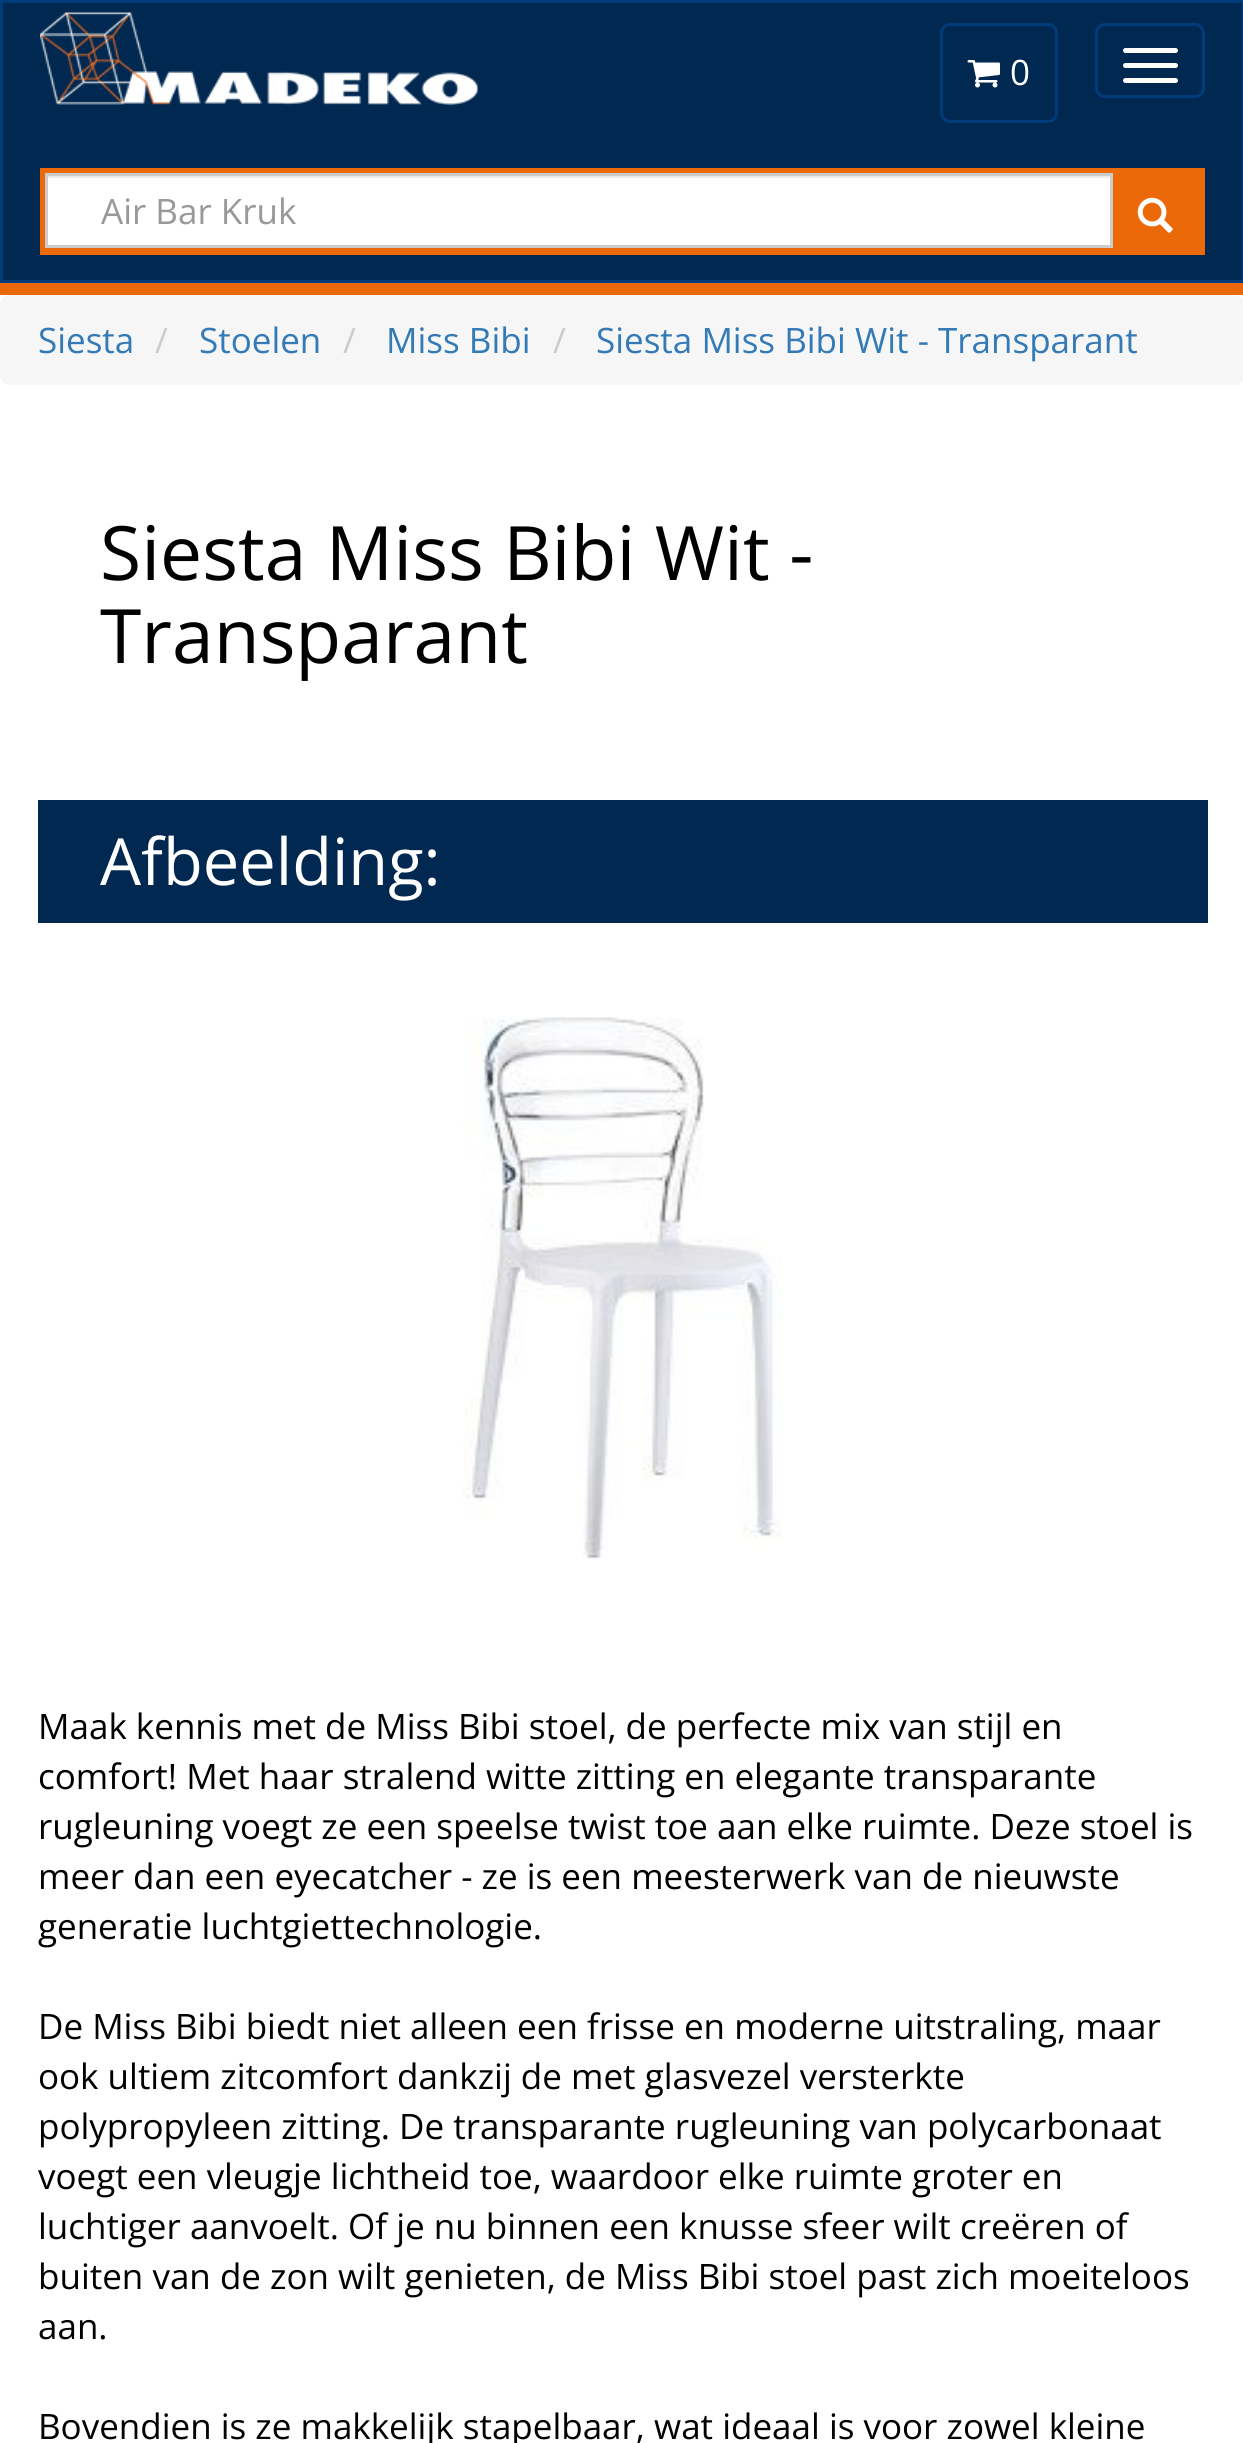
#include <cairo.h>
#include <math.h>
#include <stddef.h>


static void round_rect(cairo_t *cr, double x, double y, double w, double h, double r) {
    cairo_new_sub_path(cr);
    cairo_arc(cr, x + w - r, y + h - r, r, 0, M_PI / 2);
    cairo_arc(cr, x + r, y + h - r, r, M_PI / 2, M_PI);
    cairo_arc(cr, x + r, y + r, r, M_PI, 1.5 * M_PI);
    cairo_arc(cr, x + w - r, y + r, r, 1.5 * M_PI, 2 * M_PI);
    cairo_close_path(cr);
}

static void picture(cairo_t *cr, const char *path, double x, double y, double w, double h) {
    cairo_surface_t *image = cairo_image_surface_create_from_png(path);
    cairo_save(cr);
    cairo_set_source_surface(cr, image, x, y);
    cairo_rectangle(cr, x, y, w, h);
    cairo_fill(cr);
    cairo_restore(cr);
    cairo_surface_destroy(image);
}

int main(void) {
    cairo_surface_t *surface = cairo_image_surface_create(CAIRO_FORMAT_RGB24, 1243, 2443);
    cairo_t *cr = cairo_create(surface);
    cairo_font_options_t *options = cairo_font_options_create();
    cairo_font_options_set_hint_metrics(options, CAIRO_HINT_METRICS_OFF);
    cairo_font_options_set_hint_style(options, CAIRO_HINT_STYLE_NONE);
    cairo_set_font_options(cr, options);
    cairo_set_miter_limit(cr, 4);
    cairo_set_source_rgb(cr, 0.918, 0.412, 0.039);
    cairo_paint(cr);
    cairo_set_source_rgb(cr, 0.004, 0.157, 0.314);
    cairo_rectangle(cr, 1.5, 1.5, 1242, 280);
    cairo_fill_preserve(cr);
    cairo_set_source_rgb(cr, 0, 0.235, 0.475);
    cairo_set_line_width(cr, 3);
    cairo_stroke(cr);
    picture(cr, "img1.png", 40, 12, 438, 93);
    round_rect(cr, 941.5, 24.5, 115, 97, 8.5);
    cairo_stroke(cr);
    picture(cr, "img2.png", 967, 60, 33, 28);
    cairo_select_font_face(cr, "Open Sans", CAIRO_FONT_SLANT_NORMAL, CAIRO_FONT_WEIGHT_NORMAL);
    cairo_set_font_size(cr, 35);
    cairo_set_source_rgb(cr, 1, 1, 1);
    cairo_move_to(cr, 1010, 85);
    cairo_show_text(cr, "0");
    round_rect(cr, 1096.5, 24.5, 107, 72, 8.5);
    cairo_set_source_rgb(cr, 0, 0.235, 0.475);
    cairo_stroke(cr);
    cairo_set_source_rgb(cr, 1, 1, 1);
    round_rect(cr, 1123, 48, 55, 5, 2.5);
    cairo_fill(cr);
    round_rect(cr, 1123, 63, 55, 5, 2.5);
    cairo_fill(cr);
    round_rect(cr, 1123, 78, 55, 5, 2.5);
    cairo_fill(cr);
    cairo_set_source_rgb(cr, 0.918, 0.412, 0.039);
    cairo_rectangle(cr, 40, 168, 1165, 87);
    cairo_fill(cr);
    cairo_set_source_rgb(cr, 1, 1, 1);
    cairo_rectangle(cr, 48, 178, 1062, 67);
    cairo_fill(cr);
    cairo_set_source_rgb(cr, 0.925, 0.925, 0.925);
    cairo_rectangle(cr, 48, 176, 1062, 2);
    cairo_fill(cr);
    cairo_rectangle(cr, 46.5, 174.5, 1065, 72);
    cairo_set_source_rgb(cr, 0.8, 0.8, 0.8);
    cairo_stroke(cr);
    cairo_set_source_rgb(cr, 0.6, 0.6, 0.6);
    cairo_move_to(cr, 101, 224);
    cairo_show_text(cr, "Air Bar Kruk");
    picture(cr, "img3.png", 1137, 197, 36, 36);
    cairo_set_source_rgb(cr, 1, 1, 1);
    cairo_rectangle(cr, 0, 295, 1243, 2148);
    cairo_fill(cr);
    cairo_set_source_rgb(cr, 0.961, 0.961, 0.961);
    round_rect(cr, 0, 295, 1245, 90, 10);
    cairo_fill(cr);
    cairo_set_source_rgb(cr, 0.2, 0.478, 0.718);
    cairo_move_to(cr, 38, 353);
    cairo_show_text(cr, "Siesta");
    cairo_set_source_rgb(cr, 0.8, 0.8, 0.8);
    cairo_move_to(cr, 155, 353);
    cairo_show_text(cr, "/");
    cairo_set_source_rgb(cr, 0.2, 0.478, 0.718);
    cairo_move_to(cr, 199, 353);
    cairo_show_text(cr, "Stoelen");
    cairo_set_source_rgb(cr, 0.8, 0.8, 0.8);
    cairo_move_to(cr, 343, 353);
    cairo_show_text(cr, "/");
    cairo_set_source_rgb(cr, 0.2, 0.478, 0.718);
    cairo_move_to(cr, 386, 353);
    cairo_show_text(cr, "Miss Bibi");
    cairo_set_source_rgb(cr, 0.8, 0.8, 0.8);
    cairo_move_to(cr, 553, 353);
    cairo_show_text(cr, "/");
    cairo_set_source_rgb(cr, 0.2, 0.478, 0.718);
    cairo_move_to(cr, 596, 353);
    cairo_show_text(cr, "Siesta Miss Bibi Wit - Transparant");
    cairo_set_font_size(cr, 75);
    cairo_set_source_rgb(cr, 0, 0, 0);
    cairo_move_to(cr, 100, 580);
    cairo_show_text(cr, "Siesta Miss Bibi Wit -");
    cairo_move_to(cr, 100, 663);
    cairo_show_text(cr, "Transparant");
    cairo_set_source_rgb(cr, 0.004, 0.157, 0.314);
    cairo_rectangle(cr, 38, 800, 1170, 123);
    cairo_fill(cr);
    cairo_set_font_size(cr, 65);
    cairo_set_source_rgb(cr, 1, 1, 1);
    cairo_move_to(cr, 100, 885);
    cairo_show_text(cr, "Afbeelding:");
    picture(cr, "img4.png", 463, 1017, 320, 542);
    cairo_set_font_size(cr, 35);
    cairo_set_source_rgb(cr, 0, 0, 0);
    cairo_move_to(cr, 38, 1739);
    cairo_show_text(cr, "Maak kennis met de Miss Bibi stoel, de perfecte mix van stijl en");
    cairo_move_to(cr, 38, 1789);
    cairo_show_text(cr, "comfort! Met haar stralend witte zitting en elegante transparante");
    cairo_move_to(cr, 38, 1839);
    cairo_show_text(cr, "rugleuning voegt ze een speelse twist toe aan elke ruimte. Deze stoel is");
    cairo_move_to(cr, 38, 1889);
    cairo_show_text(cr, "meer dan een eyecatcher - ze is een meesterwerk van de nieuwste");
    cairo_move_to(cr, 38, 1939);
    cairo_show_text(cr, "generatie luchtgiettechnologie.");
    cairo_move_to(cr, 38, 2039);
    cairo_show_text(cr, "De Miss Bibi biedt niet alleen een frisse en moderne uitstraling, maar");
    cairo_move_to(cr, 38, 2089);
    cairo_show_text(cr, "ook ultiem zitcomfort dankzij de met glasvezel versterkte");
    cairo_move_to(cr, 38, 2139);
    cairo_show_text(cr, "polypropyleen zitting. De transparante rugleuning van polycarbonaat");
    cairo_move_to(cr, 38, 2189);
    cairo_show_text(cr, "voegt een vleugje lichtheid toe, waardoor elke ruimte groter en");
    cairo_move_to(cr, 38, 2239);
    cairo_show_text(cr, "luchtiger aanvoelt. Of je nu binnen een knusse sfeer wilt creëren of");
    cairo_move_to(cr, 38, 2289);
    cairo_show_text(cr, "buiten van de zon wilt genieten, de Miss Bibi stoel past zich moeiteloos");
    cairo_move_to(cr, 38, 2339);
    cairo_show_text(cr, "aan.");
    cairo_move_to(cr, 38, 2439);
    cairo_show_text(cr, "Bovendien is ze makkelijk stapelbaar, wat ideaal is voor zowel kleine");
    cairo_surface_write_to_png(surface, "page.png");
    cairo_font_options_destroy(options);
    cairo_destroy(cr);
    cairo_surface_destroy(surface);
    return 0;
}
